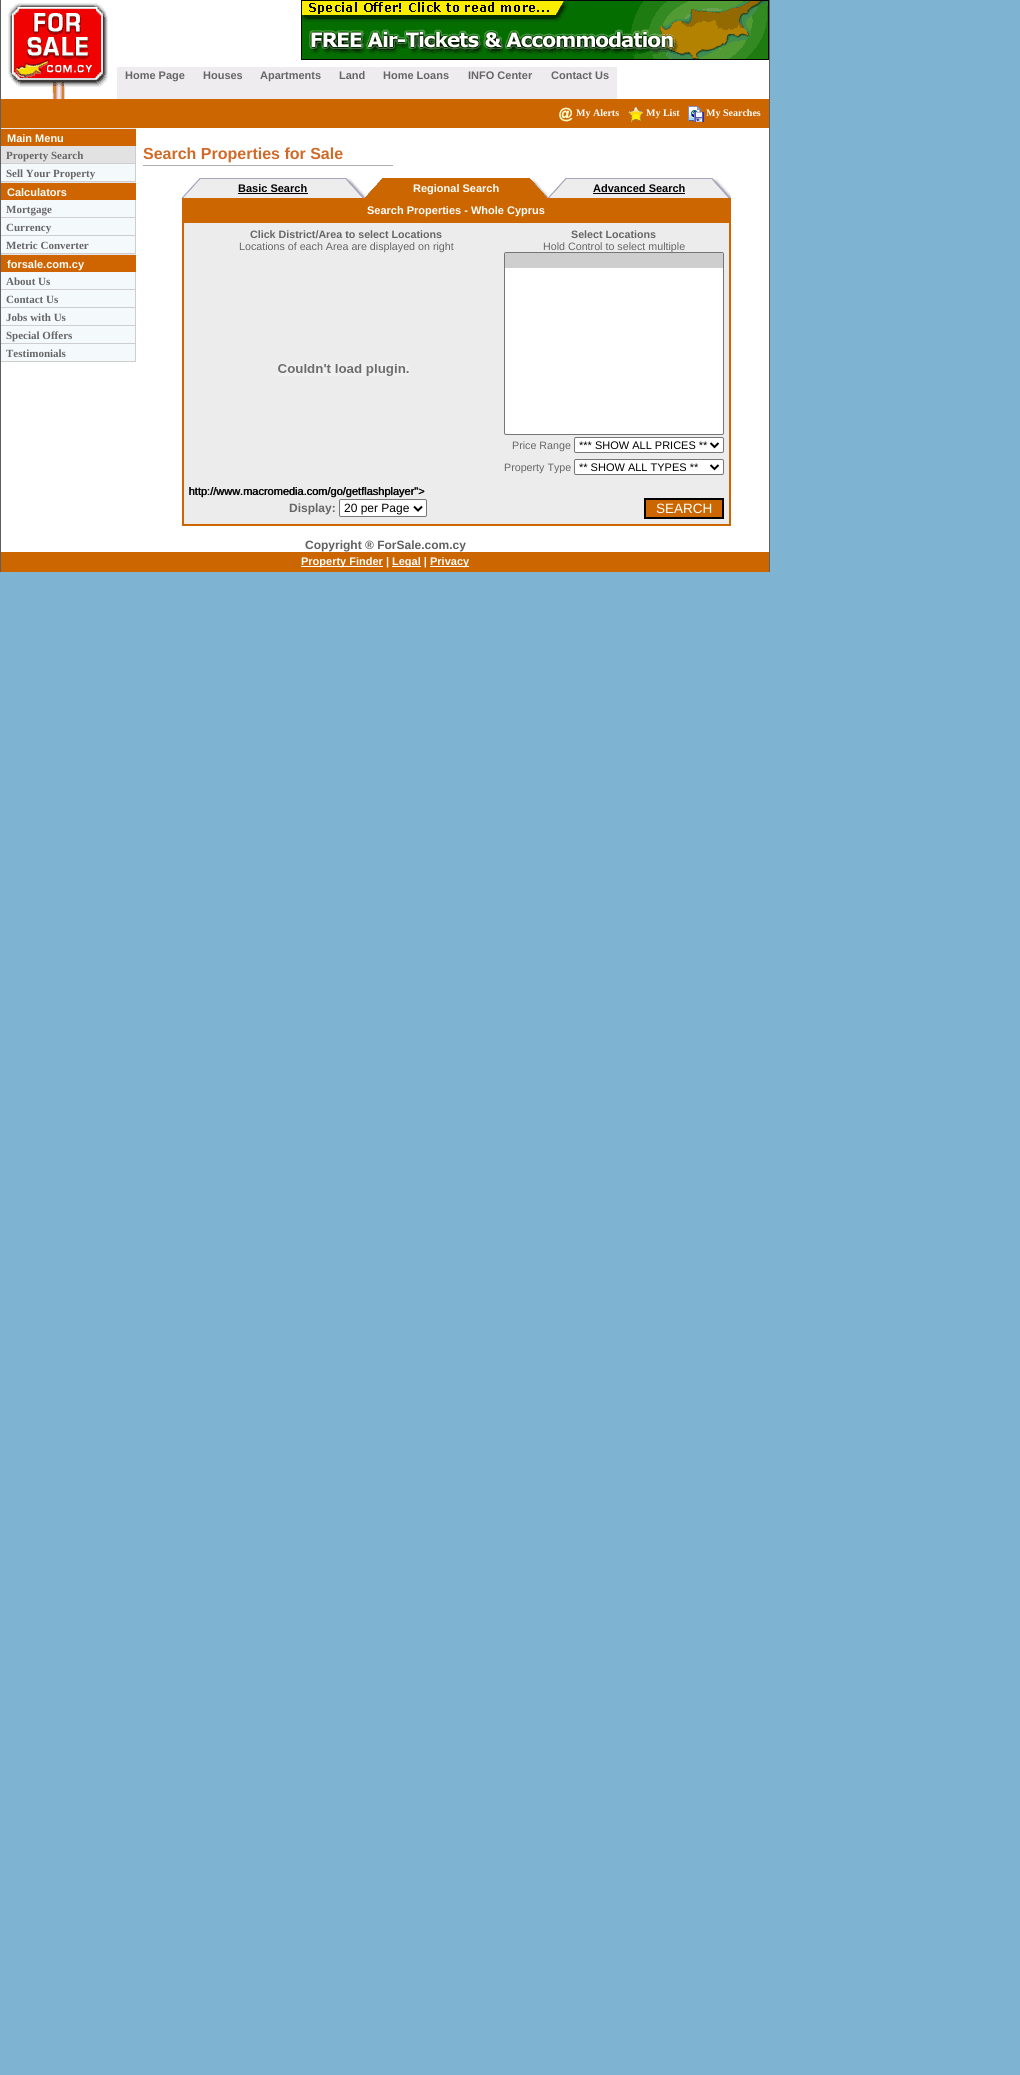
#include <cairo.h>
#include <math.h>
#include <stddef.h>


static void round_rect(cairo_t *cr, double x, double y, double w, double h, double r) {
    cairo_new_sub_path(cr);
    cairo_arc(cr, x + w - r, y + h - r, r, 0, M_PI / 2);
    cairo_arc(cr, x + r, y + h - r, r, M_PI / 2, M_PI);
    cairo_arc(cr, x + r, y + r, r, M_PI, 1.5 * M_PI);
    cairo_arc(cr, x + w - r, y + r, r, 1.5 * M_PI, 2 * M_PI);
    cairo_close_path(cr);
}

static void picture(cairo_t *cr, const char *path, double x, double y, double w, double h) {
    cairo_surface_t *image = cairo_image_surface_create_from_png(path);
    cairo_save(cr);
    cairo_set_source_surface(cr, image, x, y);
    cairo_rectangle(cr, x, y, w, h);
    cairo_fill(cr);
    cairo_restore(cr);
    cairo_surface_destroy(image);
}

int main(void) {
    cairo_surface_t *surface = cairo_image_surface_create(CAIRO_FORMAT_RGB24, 1020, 2075);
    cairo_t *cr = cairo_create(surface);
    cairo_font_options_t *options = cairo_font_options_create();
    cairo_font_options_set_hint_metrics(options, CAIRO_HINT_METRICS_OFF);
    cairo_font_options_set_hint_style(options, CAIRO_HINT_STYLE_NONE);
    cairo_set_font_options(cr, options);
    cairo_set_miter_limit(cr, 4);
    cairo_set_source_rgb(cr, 0.494, 0.702, 0.82);
    cairo_paint(cr);
    cairo_set_source_rgb(cr, 1, 1, 1);
    cairo_rectangle(cr, 1, 0, 768, 552);
    cairo_fill(cr);
    cairo_set_source_rgb(cr, 0.373, 0.373, 0.373);
    cairo_rectangle(cr, 769, 0, 1, 572);
    cairo_fill(cr);
    cairo_rectangle(cr, 0, 0, 1, 572);
    cairo_fill(cr);
    picture(cr, "img1.png", 8, 3, 100, 96);
    picture(cr, "img2.png", 301, 0, 468, 60);
    cairo_set_source_rgb(cr, 0.937, 0.922, 0.937);
    cairo_rectangle(cr, 117, 67, 500, 32);
    cairo_fill(cr);
    cairo_select_font_face(cr, "Liberation Sans", CAIRO_FONT_SLANT_NORMAL, CAIRO_FONT_WEIGHT_BOLD);
    cairo_set_font_size(cr, 11);
    cairo_set_source_rgb(cr, 0.4, 0.4, 0.4);
    cairo_move_to(cr, 125, 79);
    cairo_show_text(cr, "Home Page");
    cairo_move_to(cr, 203, 79);
    cairo_show_text(cr, "Houses");
    cairo_move_to(cr, 260, 79);
    cairo_show_text(cr, "Apartments");
    cairo_move_to(cr, 339, 79);
    cairo_show_text(cr, "Land");
    cairo_move_to(cr, 383, 79);
    cairo_show_text(cr, "Home Loans");
    cairo_move_to(cr, 468, 79);
    cairo_show_text(cr, "INFO Center");
    cairo_move_to(cr, 551, 79);
    cairo_show_text(cr, "Contact Us");
    cairo_set_source_rgb(cr, 0.8, 0.4, 0);
    cairo_rectangle(cr, 1, 99, 768, 29);
    cairo_fill(cr);
    picture(cr, "img3.png", 559, 107, 14, 15);
    cairo_select_font_face(cr, "Liberation Serif", CAIRO_FONT_SLANT_NORMAL, CAIRO_FONT_WEIGHT_BOLD);
    cairo_set_font_size(cr, 10);
    cairo_set_source_rgb(cr, 1, 1, 1);
    cairo_move_to(cr, 576, 116);
    cairo_show_text(cr, "My Alerts");
    picture(cr, "img4.png", 628, 107, 15, 15);
    cairo_move_to(cr, 646, 116);
    cairo_show_text(cr, "My List");
    picture(cr, "img5.png", 688, 106, 16, 16);
    cairo_move_to(cr, 706, 116);
    cairo_show_text(cr, "My Searches");
    cairo_set_source_rgb(cr, 0.808, 0.396, 0);
    cairo_rectangle(cr, 1, 129, 135, 17);
    cairo_fill(cr);
    cairo_set_source_rgb(cr, 0.902, 0.902, 0.902);
    cairo_rectangle(cr, 1, 128, 135, 1);
    cairo_fill(cr);
    cairo_select_font_face(cr, "Liberation Sans", CAIRO_FONT_SLANT_NORMAL, CAIRO_FONT_WEIGHT_BOLD);
    cairo_set_font_size(cr, 11);
    cairo_set_source_rgb(cr, 1, 1, 1);
    cairo_move_to(cr, 7, 142);
    cairo_show_text(cr, "Main Menu");
    cairo_set_source_rgb(cr, 0.957, 0.973, 0.984);
    cairo_rectangle(cr, 1, 164, 134, 17);
    cairo_fill(cr);
    cairo_set_source_rgb(cr, 0.89, 0.886, 0.886);
    cairo_rectangle(cr, 1, 146, 134, 17);
    cairo_fill(cr);
    cairo_set_source_rgb(cr, 0.808, 0.808, 0.808);
    cairo_rectangle(cr, 135, 146, 1, 36);
    cairo_fill(cr);
    cairo_rectangle(cr, 1, 163, 135, 1);
    cairo_fill(cr);
    cairo_select_font_face(cr, "Liberation Serif", CAIRO_FONT_SLANT_NORMAL, CAIRO_FONT_WEIGHT_BOLD);
    cairo_set_source_rgb(cr, 0.4, 0.4, 0.4);
    cairo_move_to(cr, 6, 159);
    cairo_show_text(cr, "Property Search");
    cairo_set_source_rgb(cr, 0.808, 0.808, 0.808);
    cairo_rectangle(cr, 1, 181, 135, 1);
    cairo_fill(cr);
    cairo_set_source_rgb(cr, 0.4, 0.4, 0.4);
    cairo_move_to(cr, 6, 177);
    cairo_show_text(cr, "Sell Your Property");
    cairo_set_source_rgb(cr, 0.808, 0.396, 0);
    cairo_rectangle(cr, 1, 183, 135, 17);
    cairo_fill(cr);
    cairo_set_source_rgb(cr, 0.902, 0.902, 0.902);
    cairo_rectangle(cr, 1, 182, 135, 1);
    cairo_fill(cr);
    cairo_select_font_face(cr, "Liberation Sans", CAIRO_FONT_SLANT_NORMAL, CAIRO_FONT_WEIGHT_BOLD);
    cairo_set_source_rgb(cr, 1, 1, 1);
    cairo_move_to(cr, 7, 196);
    cairo_show_text(cr, "Calculators");
    cairo_set_source_rgb(cr, 0.957, 0.973, 0.984);
    cairo_rectangle(cr, 1, 200, 134, 53);
    cairo_fill(cr);
    cairo_set_source_rgb(cr, 0.808, 0.808, 0.808);
    cairo_rectangle(cr, 135, 200, 1, 54);
    cairo_fill(cr);
    cairo_rectangle(cr, 1, 217, 135, 1);
    cairo_fill(cr);
    cairo_select_font_face(cr, "Liberation Serif", CAIRO_FONT_SLANT_NORMAL, CAIRO_FONT_WEIGHT_BOLD);
    cairo_set_source_rgb(cr, 0.4, 0.4, 0.4);
    cairo_move_to(cr, 6, 213);
    cairo_show_text(cr, "Mortgage");
    cairo_set_source_rgb(cr, 0.808, 0.808, 0.808);
    cairo_rectangle(cr, 1, 235, 135, 1);
    cairo_fill(cr);
    cairo_set_source_rgb(cr, 0.4, 0.4, 0.4);
    cairo_move_to(cr, 6, 231);
    cairo_show_text(cr, "Currency");
    cairo_set_source_rgb(cr, 0.808, 0.808, 0.808);
    cairo_rectangle(cr, 1, 253, 135, 1);
    cairo_fill(cr);
    cairo_set_source_rgb(cr, 0.4, 0.4, 0.4);
    cairo_move_to(cr, 6, 249);
    cairo_show_text(cr, "Metric Converter");
    cairo_set_source_rgb(cr, 0.808, 0.396, 0);
    cairo_rectangle(cr, 1, 255, 135, 17);
    cairo_fill(cr);
    cairo_set_source_rgb(cr, 0.902, 0.902, 0.902);
    cairo_rectangle(cr, 1, 254, 135, 1);
    cairo_fill(cr);
    cairo_select_font_face(cr, "Liberation Sans", CAIRO_FONT_SLANT_NORMAL, CAIRO_FONT_WEIGHT_BOLD);
    cairo_set_source_rgb(cr, 1, 1, 1);
    cairo_move_to(cr, 7, 268);
    cairo_show_text(cr, "forsale.com.cy");
    cairo_set_source_rgb(cr, 0.957, 0.973, 0.984);
    cairo_rectangle(cr, 1, 272, 134, 89);
    cairo_fill(cr);
    cairo_set_source_rgb(cr, 0.808, 0.808, 0.808);
    cairo_rectangle(cr, 135, 272, 1, 90);
    cairo_fill(cr);
    cairo_rectangle(cr, 1, 289, 135, 1);
    cairo_fill(cr);
    cairo_select_font_face(cr, "Liberation Serif", CAIRO_FONT_SLANT_NORMAL, CAIRO_FONT_WEIGHT_BOLD);
    cairo_set_source_rgb(cr, 0.4, 0.4, 0.4);
    cairo_move_to(cr, 6, 285);
    cairo_show_text(cr, "About Us");
    cairo_set_source_rgb(cr, 0.808, 0.808, 0.808);
    cairo_rectangle(cr, 1, 307, 135, 1);
    cairo_fill(cr);
    cairo_set_source_rgb(cr, 0.4, 0.4, 0.4);
    cairo_move_to(cr, 6, 303);
    cairo_show_text(cr, "Contact Us");
    cairo_set_source_rgb(cr, 0.808, 0.808, 0.808);
    cairo_rectangle(cr, 1, 325, 135, 1);
    cairo_fill(cr);
    cairo_set_source_rgb(cr, 0.4, 0.4, 0.4);
    cairo_move_to(cr, 6, 321);
    cairo_show_text(cr, "Jobs with Us");
    cairo_set_source_rgb(cr, 0.808, 0.808, 0.808);
    cairo_rectangle(cr, 1, 343, 135, 1);
    cairo_fill(cr);
    cairo_set_source_rgb(cr, 0.4, 0.4, 0.4);
    cairo_move_to(cr, 6, 339);
    cairo_show_text(cr, "Special Offers");
    cairo_set_source_rgb(cr, 0.808, 0.808, 0.808);
    cairo_rectangle(cr, 1, 361, 135, 1);
    cairo_fill(cr);
    cairo_set_source_rgb(cr, 0.4, 0.4, 0.4);
    cairo_move_to(cr, 6, 357);
    cairo_show_text(cr, "Testimonials");
    cairo_set_source_rgb(cr, 0.682, 0.675, 0.682);
    cairo_rectangle(cr, 143, 165, 250, 1);
    cairo_fill(cr);
    cairo_select_font_face(cr, "Liberation Sans", CAIRO_FONT_SLANT_NORMAL, CAIRO_FONT_WEIGHT_BOLD);
    cairo_set_font_size(cr, 16);
    cairo_set_source_rgb(cr, 0.812, 0.416, 0.157);
    cairo_move_to(cr, 143, 159);
    cairo_show_text(cr, "Search Properties for Sale");
    picture(cr, "img6.png", 182, 178, 183, 20);
    cairo_set_font_size(cr, 11);
    cairo_set_source_rgb(cr, 0, 0, 0);
    cairo_move_to(cr, 238, 192);
    cairo_show_text(cr, "Basic Search");
    cairo_rectangle(cr, 238, 193, 70, 1);
    cairo_fill(cr);
    picture(cr, "img7.png", 365, 178, 183, 20);
    cairo_set_source_rgb(cr, 1, 1, 1);
    cairo_move_to(cr, 413, 192);
    cairo_show_text(cr, "Regional Search");
    picture(cr, "img6.png", 548, 178, 183, 20);
    cairo_set_source_rgb(cr, 0, 0, 0);
    cairo_move_to(cr, 593, 192);
    cairo_show_text(cr, "Advanced Search");
    cairo_rectangle(cr, 593, 193, 92, 1);
    cairo_fill(cr);
    cairo_set_source_rgb(cr, 0.8, 0.4, 0);
    cairo_rectangle(cr, 182, 198, 549, 23);
    cairo_fill(cr);
    cairo_set_source_rgb(cr, 1, 1, 1);
    cairo_move_to(cr, 367, 214);
    cairo_show_text(cr, "Search Properties - Whole Cyprus");
    cairo_set_source_rgb(cr, 0.922, 0.922, 0.922);
    cairo_rectangle(cr, 183, 222, 547, 303);
    cairo_fill_preserve(cr);
    cairo_set_source_rgb(cr, 0.8, 0.4, 0);
    cairo_stroke(cr);
    cairo_set_font_size(cr, 10.7);
    cairo_set_source_rgb(cr, 0.4, 0.4, 0.4);
    cairo_move_to(cr, 250, 238);
    cairo_show_text(cr, "Click District/Area to select Locations");
    cairo_select_font_face(cr, "Liberation Sans", CAIRO_FONT_SLANT_NORMAL, CAIRO_FONT_WEIGHT_NORMAL);
    cairo_move_to(cr, 239, 250);
    cairo_show_text(cr, "Locations of each Area are displayed on right");
    cairo_select_font_face(cr, "Liberation Sans", CAIRO_FONT_SLANT_NORMAL, CAIRO_FONT_WEIGHT_BOLD);
    cairo_move_to(cr, 571, 238);
    cairo_show_text(cr, "Select Locations");
    cairo_select_font_face(cr, "Liberation Sans", CAIRO_FONT_SLANT_NORMAL, CAIRO_FONT_WEIGHT_NORMAL);
    cairo_move_to(cr, 543, 250);
    cairo_show_text(cr, "Hold Control to select multiple");
    cairo_set_source_rgb(cr, 1, 1, 1);
    round_rect(cr, 504.5, 252.5, 219, 182, 1.5);
    cairo_fill_preserve(cr);
    cairo_set_source_rgb(cr, 0.463, 0.463, 0.463);
    cairo_set_line_width(cr, 1);
    cairo_stroke(cr);
    cairo_set_source_rgb(cr, 0.808, 0.808, 0.808);
    cairo_new_path(cr);
    cairo_move_to(cr, 506, 253);
    cairo_line_to(cr, 722, 253);
    cairo_curve_to(cr, 722.5, 253, 723, 253.5, 723, 254);
    cairo_line_to(cr, 723, 268);
    cairo_line_to(cr, 505, 268);
    cairo_line_to(cr, 505, 254);
    cairo_curve_to(cr, 505, 253.5, 505.5, 253, 506, 253);
    cairo_close_path(cr);
    cairo_fill(cr);
    cairo_set_source_rgb(cr, 0.4, 0.4, 0.4);
    cairo_move_to(cr, 512, 449);
    cairo_show_text(cr, "Price Range");
    cairo_set_source_rgb(cr, 1, 1, 1);
    round_rect(cr, 574.5, 437.5, 149, 15, 1.5);
    cairo_fill_preserve(cr);
    cairo_set_source_rgb(cr, 0.463, 0.463, 0.463);
    cairo_stroke(cr);
    cairo_new_path(cr);
    cairo_move_to(cr, 710.5, 443);
    cairo_line_to(cr, 714.5, 447);
    cairo_line_to(cr, 718.5, 443);
    cairo_set_source_rgb(cr, 0, 0, 0);
    cairo_set_line_width(cr, 2);
    cairo_stroke(cr);
    cairo_set_font_size(cr, 11);
    cairo_move_to(cr, 579, 449);
    cairo_show_text(cr, "*** SHOW ALL PRICES **");
    cairo_set_font_size(cr, 10.7);
    cairo_set_source_rgb(cr, 0.4, 0.4, 0.4);
    cairo_move_to(cr, 504, 471);
    cairo_show_text(cr, "Property Type");
    cairo_set_source_rgb(cr, 1, 1, 1);
    round_rect(cr, 574.5, 459.5, 149, 15, 1.5);
    cairo_fill_preserve(cr);
    cairo_set_source_rgb(cr, 0.463, 0.463, 0.463);
    cairo_set_line_width(cr, 1);
    cairo_stroke(cr);
    cairo_new_path(cr);
    cairo_move_to(cr, 710.5, 465);
    cairo_line_to(cr, 714.5, 469);
    cairo_line_to(cr, 718.5, 465);
    cairo_set_source_rgb(cr, 0, 0, 0);
    cairo_set_line_width(cr, 2);
    cairo_stroke(cr);
    cairo_set_font_size(cr, 11);
    cairo_move_to(cr, 579, 471);
    cairo_show_text(cr, "** SHOW ALL TYPES **");
    picture(cr, "img8.png", 278, 364, 131, 12);
    picture(cr, "img9.png", 189, 487, 235, 10);
    cairo_move_to(cr, 189, 495);
    cairo_show_text(cr, "http://www.macromedia.com/go/getflashplayer\">");
    cairo_select_font_face(cr, "Liberation Sans", CAIRO_FONT_SLANT_NORMAL, CAIRO_FONT_WEIGHT_BOLD);
    cairo_set_font_size(cr, 12);
    cairo_set_source_rgb(cr, 0.4, 0.4, 0.4);
    cairo_move_to(cr, 289, 512);
    cairo_show_text(cr, "Display:");
    cairo_set_source_rgb(cr, 1, 1, 1);
    round_rect(cr, 339.5, 499.5, 87, 17, 1.5);
    cairo_fill_preserve(cr);
    cairo_set_source_rgb(cr, 0.463, 0.463, 0.463);
    cairo_set_line_width(cr, 1);
    cairo_stroke(cr);
    cairo_new_path(cr);
    cairo_move_to(cr, 414, 506.5);
    cairo_line_to(cr, 418, 510.5);
    cairo_line_to(cr, 422, 506.5);
    cairo_set_source_rgb(cr, 0, 0, 0);
    cairo_set_line_width(cr, 2);
    cairo_stroke(cr);
    cairo_select_font_face(cr, "Liberation Sans", CAIRO_FONT_SLANT_NORMAL, CAIRO_FONT_WEIGHT_NORMAL);
    cairo_move_to(cr, 344, 512);
    cairo_show_text(cr, "20 per Page");
    cairo_set_source_rgb(cr, 0.8, 0.4, 0);
    cairo_rectangle(cr, 645, 499, 78, 19);
    cairo_fill_preserve(cr);
    cairo_set_source_rgb(cr, 0, 0, 0);
    cairo_stroke(cr);
    cairo_set_font_size(cr, 13.5);
    cairo_set_source_rgb(cr, 1, 1, 1);
    cairo_move_to(cr, 656, 513);
    cairo_show_text(cr, "SEARCH");
    cairo_select_font_face(cr, "Liberation Sans", CAIRO_FONT_SLANT_NORMAL, CAIRO_FONT_WEIGHT_BOLD);
    cairo_set_font_size(cr, 12);
    cairo_set_source_rgb(cr, 0.376, 0.376, 0.376);
    cairo_move_to(cr, 305, 549);
    cairo_show_text(cr, "Copyright ® ForSale.com.cy");
    cairo_set_source_rgb(cr, 0.8, 0.4, 0);
    cairo_rectangle(cr, 1, 552, 768, 20);
    cairo_fill(cr);
    cairo_set_source_rgb(cr, 1, 1, 1);
    cairo_rectangle(cr, 301, 566, 82, 1);
    cairo_fill(cr);
    cairo_set_font_size(cr, 11);
    cairo_move_to(cr, 301, 565);
    cairo_show_text(cr, "Property Finder |");
    cairo_rectangle(cr, 392, 566, 29, 1);
    cairo_fill(cr);
    cairo_move_to(cr, 392, 565);
    cairo_show_text(cr, "Legal |");
    cairo_rectangle(cr, 430, 566, 39, 1);
    cairo_fill(cr);
    cairo_move_to(cr, 430, 565);
    cairo_show_text(cr, "Privacy");
    cairo_surface_write_to_png(surface, "page.png");
    cairo_font_options_destroy(options);
    cairo_destroy(cr);
    cairo_surface_destroy(surface);
    return 0;
}
